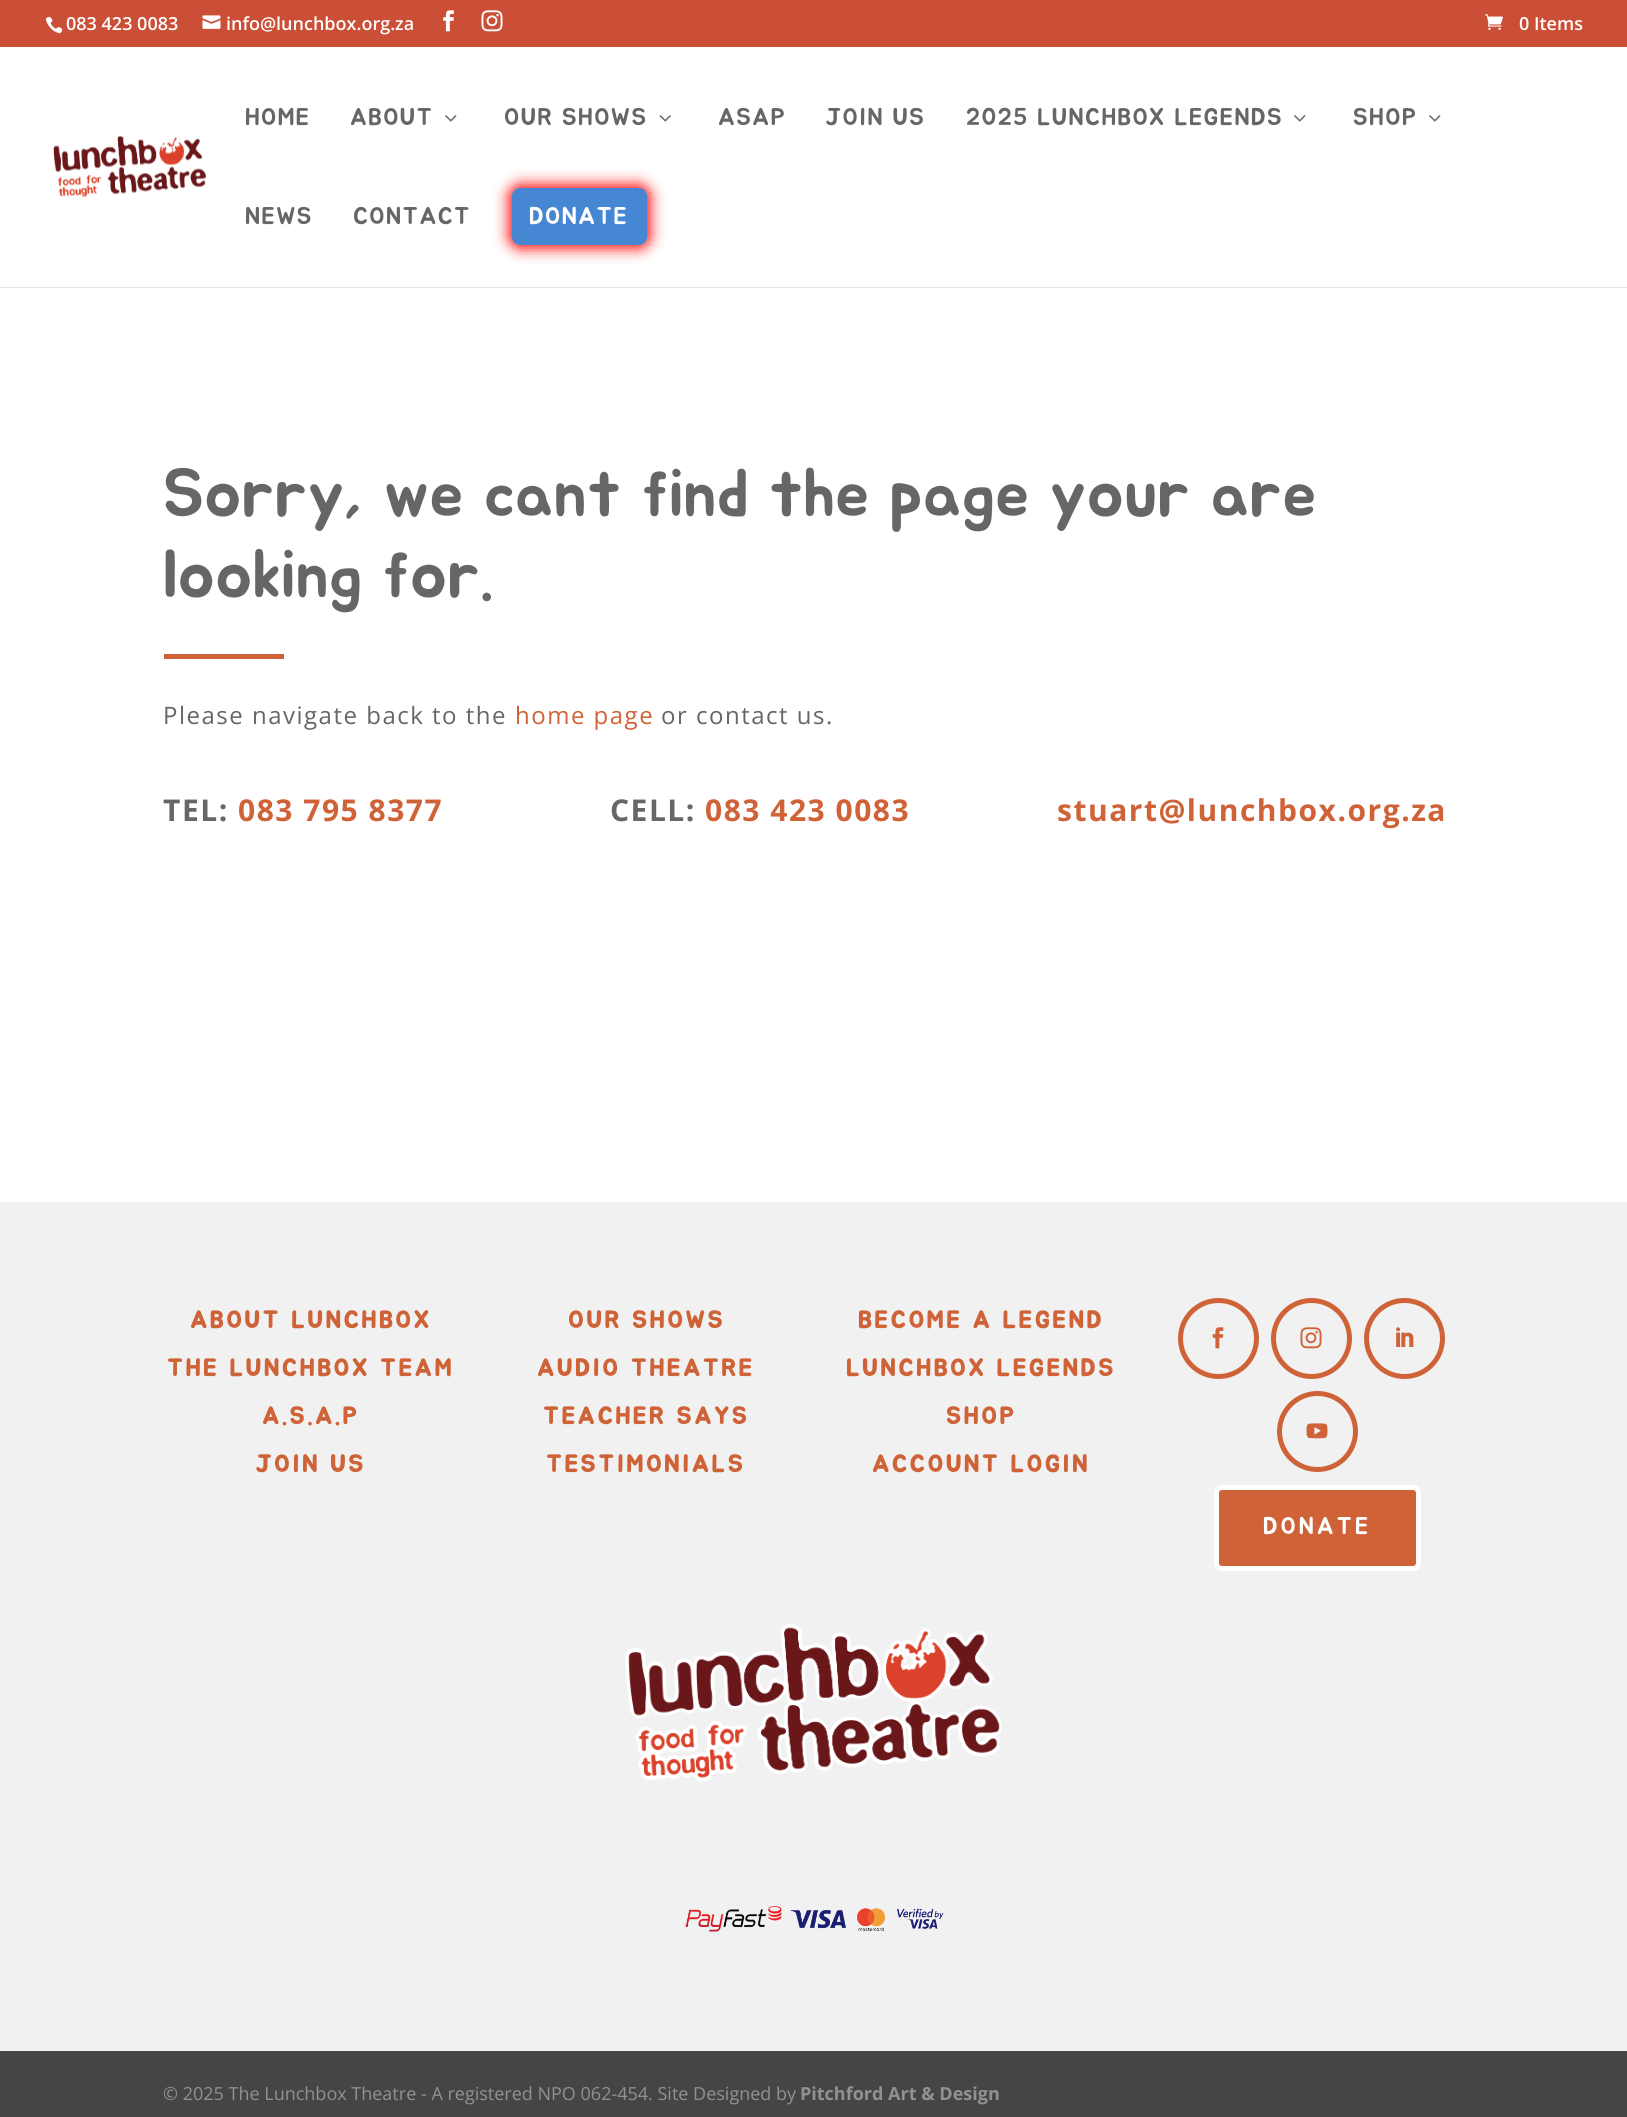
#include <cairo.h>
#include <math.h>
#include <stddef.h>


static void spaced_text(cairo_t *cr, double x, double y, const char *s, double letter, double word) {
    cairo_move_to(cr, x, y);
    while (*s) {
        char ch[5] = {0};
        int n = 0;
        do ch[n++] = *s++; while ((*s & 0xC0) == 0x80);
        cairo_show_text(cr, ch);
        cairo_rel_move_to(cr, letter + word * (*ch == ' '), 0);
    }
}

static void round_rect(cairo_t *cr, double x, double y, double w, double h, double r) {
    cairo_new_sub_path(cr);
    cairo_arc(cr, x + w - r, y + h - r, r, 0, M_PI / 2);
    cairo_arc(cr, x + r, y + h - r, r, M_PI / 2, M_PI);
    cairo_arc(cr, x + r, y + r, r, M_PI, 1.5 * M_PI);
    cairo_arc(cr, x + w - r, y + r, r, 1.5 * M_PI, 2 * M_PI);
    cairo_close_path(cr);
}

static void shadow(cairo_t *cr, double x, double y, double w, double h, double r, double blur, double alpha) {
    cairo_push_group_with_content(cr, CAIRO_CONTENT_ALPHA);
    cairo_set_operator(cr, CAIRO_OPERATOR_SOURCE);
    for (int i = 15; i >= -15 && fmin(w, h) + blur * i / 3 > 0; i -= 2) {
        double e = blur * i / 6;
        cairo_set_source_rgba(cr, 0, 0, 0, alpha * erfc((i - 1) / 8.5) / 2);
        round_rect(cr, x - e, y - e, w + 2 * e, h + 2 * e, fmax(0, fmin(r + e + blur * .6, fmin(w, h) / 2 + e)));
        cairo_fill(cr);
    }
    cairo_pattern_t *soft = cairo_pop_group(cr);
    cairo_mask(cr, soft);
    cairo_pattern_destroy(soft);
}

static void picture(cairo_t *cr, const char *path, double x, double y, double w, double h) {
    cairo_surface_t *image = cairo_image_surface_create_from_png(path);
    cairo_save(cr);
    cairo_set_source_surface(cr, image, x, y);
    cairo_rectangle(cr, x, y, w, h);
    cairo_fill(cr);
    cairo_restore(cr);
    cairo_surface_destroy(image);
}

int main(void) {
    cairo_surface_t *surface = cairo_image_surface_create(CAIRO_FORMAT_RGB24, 1627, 2117);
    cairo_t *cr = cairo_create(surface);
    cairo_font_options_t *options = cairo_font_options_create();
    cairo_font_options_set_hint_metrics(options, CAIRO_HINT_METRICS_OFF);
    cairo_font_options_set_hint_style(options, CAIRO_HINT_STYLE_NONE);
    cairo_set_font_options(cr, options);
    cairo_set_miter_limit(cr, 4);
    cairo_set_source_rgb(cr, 1, 1, 1);
    cairo_paint(cr);
    cairo_set_source_rgb(cr, 0.796, 0.306, 0.216);
    cairo_rectangle(cr, 0, 0, 1627, 47);
    cairo_fill(cr);
    picture(cr, "img1.png", 45, 16, 18, 18);
    cairo_select_font_face(cr, "Open Sans SemiBold", CAIRO_FONT_SLANT_NORMAL, CAIRO_FONT_WEIGHT_NORMAL);
    cairo_set_font_size(cr, 18);
    cairo_set_source_rgb(cr, 1, 1, 1);
    cairo_move_to(cr, 66, 30);
    cairo_show_text(cr, "083 423 0083");
    picture(cr, "img2.png", 202, 15, 19, 14);
    cairo_move_to(cr, 226, 30);
    cairo_show_text(cr, "info@lunchbox.org.za");
    picture(cr, "img3.png", 443, 10, 11, 22);
    picture(cr, "img4.png", 481, 10, 22, 22);
    picture(cr, "img5.png", 1485, 14, 18, 16);
    cairo_move_to(cr, 1519, 30);
    cairo_show_text(cr, "0 Items");
    cairo_set_source_rgb(cr, 0.902, 0.902, 0.902);
    cairo_new_path(cr);
    cairo_move_to(cr, 0, 286);
    cairo_line_to(cr, 0, 288);
    cairo_line_to(cr, 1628, 288);
    cairo_line_to(cr, 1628, 48);
    cairo_line_to(cr, 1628, 286);
    cairo_close_path(cr);
    cairo_fill(cr);
    cairo_set_source_rgb(cr, 1, 1, 1);
    cairo_rectangle(cr, 0, 286, 1627, 1);
    cairo_fill(cr);
    picture(cr, "img6.png", 53, 135, 154, 62);
    cairo_select_font_face(cr, "Jua", CAIRO_FONT_SLANT_NORMAL, CAIRO_FONT_WEIGHT_NORMAL);
    cairo_set_font_size(cr, 24);
    cairo_set_source_rgb(cr, 0.4, 0.4, 0.4);
    spaced_text(cr, 245, 125, "HOME", 1.5, 0);
    spaced_text(cr, 350, 125, "ABOUT", 1.5, 0);
    picture(cr, "img7.png", 445, 115, 12, 7);
    spaced_text(cr, 504, 125, "OUR SHOWS", 1.5, 0);
    picture(cr, "img8.png", 659, 115, 12, 7);
    spaced_text(cr, 718, 125, "ASAP", 1.5, 0);
    spaced_text(cr, 826, 125, "JOIN US", 1.5, 0);
    spaced_text(cr, 966, 125, "2025 LUNCHBOX LEGENDS", 1.5, 0);
    picture(cr, "img7.png", 1294, 115, 12, 7);
    spaced_text(cr, 1353, 125, "SHOP", 1.5, 0);
    picture(cr, "img7.png", 1429, 115, 12, 7);
    spaced_text(cr, 245, 224, "NEWS", 1.5, 0);
    spaced_text(cr, 353, 224, "CONTACT", 1.5, 0);
    cairo_set_source_rgb(cr, 1, 0, 0);
    shadow(cr, 509, 185, 141, 63, 11, 7.5, 1);
    cairo_set_source_rgb(cr, 0.275, 0.529, 0.831);
    round_rect(cr, 512, 188, 135, 57, 8);
    cairo_fill(cr);
    cairo_set_source_rgb(cr, 1, 1, 1);
    spaced_text(cr, 529, 224, "DONATE", 1.5, 0);
    cairo_set_font_size(cr, 67.5);
    cairo_set_source_rgb(cr, 0.4, 0.4, 0.4);
    cairo_move_to(cr, 163, 516);
    cairo_show_text(cr, "Sorry, we cant find the page your are");
    cairo_move_to(cr, 163, 597);
    cairo_show_text(cr, "looking for.");
    cairo_set_source_rgb(cr, 0.812, 0.384, 0.216);
    cairo_rectangle(cr, 164, 654, 120, 5);
    cairo_fill(cr);
    cairo_select_font_face(cr, "Open Sans", CAIRO_FONT_SLANT_NORMAL, CAIRO_FONT_WEIGHT_NORMAL);
    cairo_set_font_size(cr, 24);
    cairo_set_source_rgb(cr, 0.4, 0.4, 0.4);
    spaced_text(cr, 163, 724, "Please navigate back to the", 1.5, 0);
    cairo_set_source_rgb(cr, 0.812, 0.384, 0.216);
    spaced_text(cr, 515, 724, "home page", 1.5, 0);
    cairo_set_source_rgb(cr, 0.4, 0.4, 0.4);
    spaced_text(cr, 661, 724, "or contact us.", 1.5, 0);
    cairo_select_font_face(cr, "Open Sans", CAIRO_FONT_SLANT_NORMAL, CAIRO_FONT_WEIGHT_BOLD);
    cairo_set_font_size(cr, 30);
    spaced_text(cr, 163, 821, "TEL:", 1.5, 0);
    cairo_set_source_rgb(cr, 0.812, 0.384, 0.216);
    spaced_text(cr, 238, 821, "083 795 8377", 1.5, 0);
    cairo_set_source_rgb(cr, 0.4, 0.4, 0.4);
    spaced_text(cr, 610, 821, "CELL:", 1.5, 0);
    cairo_set_source_rgb(cr, 0.812, 0.384, 0.216);
    spaced_text(cr, 705, 821, "083 423 0083", 1.5, 0);
    spaced_text(cr, 1057, 821, "stuart@lunchbox.org.za", 1.5, 0);
    cairo_set_source_rgb(cr, 0.945, 0.945, 0.945);
    cairo_rectangle(cr, 0, 1202, 1627, 849);
    cairo_fill(cr);
    cairo_select_font_face(cr, "Jua", CAIRO_FONT_SLANT_NORMAL, CAIRO_FONT_WEIGHT_BOLD);
    cairo_set_font_size(cr, 24);
    cairo_set_source_rgb(cr, 0.812, 0.384, 0.216);
    spaced_text(cr, 190, 1328, "ABOUT LUNCHBOX", 3, 0);
    spaced_text(cr, 167, 1376, "THE LUNCHBOX TEAM", 3, 0);
    spaced_text(cr, 262, 1424, "A.S.A.P", 3, 0);
    spaced_text(cr, 256, 1472, "JOIN US", 3, 0);
    spaced_text(cr, 568, 1328, "OUR SHOWS", 3, 0);
    spaced_text(cr, 537, 1376, "AUDIO THEATRE", 3, 0);
    spaced_text(cr, 543, 1424, "TEACHER SAYS", 3, 0);
    spaced_text(cr, 546, 1472, "TESTIMONIALS", 3, 0);
    spaced_text(cr, 858, 1328, "BECOME A LEGEND", 3, 0);
    spaced_text(cr, 846, 1376, "LUNCHBOX LEGENDS", 3, 0);
    spaced_text(cr, 946, 1424, "SHOP", 3, 0);
    spaced_text(cr, 872, 1472, "ACCOUNT LOGIN", 3, 0);
    cairo_new_path(cr);
    cairo_arc(cr, 1218.5, 1338.5, 38, 0, 2 * M_PI);
    cairo_set_line_width(cr, 5);
    cairo_stroke(cr);
    picture(cr, "img9.png", 1212, 1327, 12, 22);
    cairo_arc(cr, 1311.5, 1338.5, 38, 0, 2 * M_PI);
    cairo_stroke(cr);
    picture(cr, "img10.png", 1300, 1327, 22, 22);
    cairo_arc(cr, 1404.5, 1338.5, 38, 0, 2 * M_PI);
    cairo_stroke(cr);
    picture(cr, "img11.png", 1396, 1327, 18, 20);
    cairo_arc(cr, 1317.5, 1431.5, 38, 0, 2 * M_PI);
    cairo_stroke(cr);
    picture(cr, "img12.png", 1306, 1423, 22, 16);
    round_rect(cr, 1216.5, 1487.5, 202, 81, 5.5);
    cairo_fill_preserve(cr);
    cairo_set_source_rgb(cr, 1, 1, 1);
    cairo_stroke(cr);
    cairo_select_font_face(cr, "Jua", CAIRO_FONT_SLANT_NORMAL, CAIRO_FONT_WEIGHT_NORMAL);
    spaced_text(cr, 1263, 1534, "DONATE", 3, 0);
    picture(cr, "img13.png", 625, 1624, 377, 158);
    picture(cr, "img14.png", 684, 1906, 260, 26);
    cairo_set_source_rgb(cr, 0.271, 0.271, 0.271);
    cairo_rectangle(cr, 0, 2051, 1627, 66);
    cairo_fill(cr);
    cairo_select_font_face(cr, "Open Sans", CAIRO_FONT_SLANT_NORMAL, CAIRO_FONT_WEIGHT_NORMAL);
    cairo_set_font_size(cr, 18);
    cairo_set_source_rgb(cr, 0.569, 0.569, 0.569);
    cairo_move_to(cr, 163, 2100);
    cairo_show_text(cr, "© 2025 The Lunchbox Theatre - A registered NPO 062-454. Site Designed by");
    cairo_select_font_face(cr, "Open Sans", CAIRO_FONT_SLANT_NORMAL, CAIRO_FONT_WEIGHT_BOLD);
    cairo_move_to(cr, 800, 2100);
    cairo_show_text(cr, "Pitchford Art & Design");
    cairo_surface_write_to_png(surface, "page.png");
    cairo_font_options_destroy(options);
    cairo_destroy(cr);
    cairo_surface_destroy(surface);
    return 0;
}
